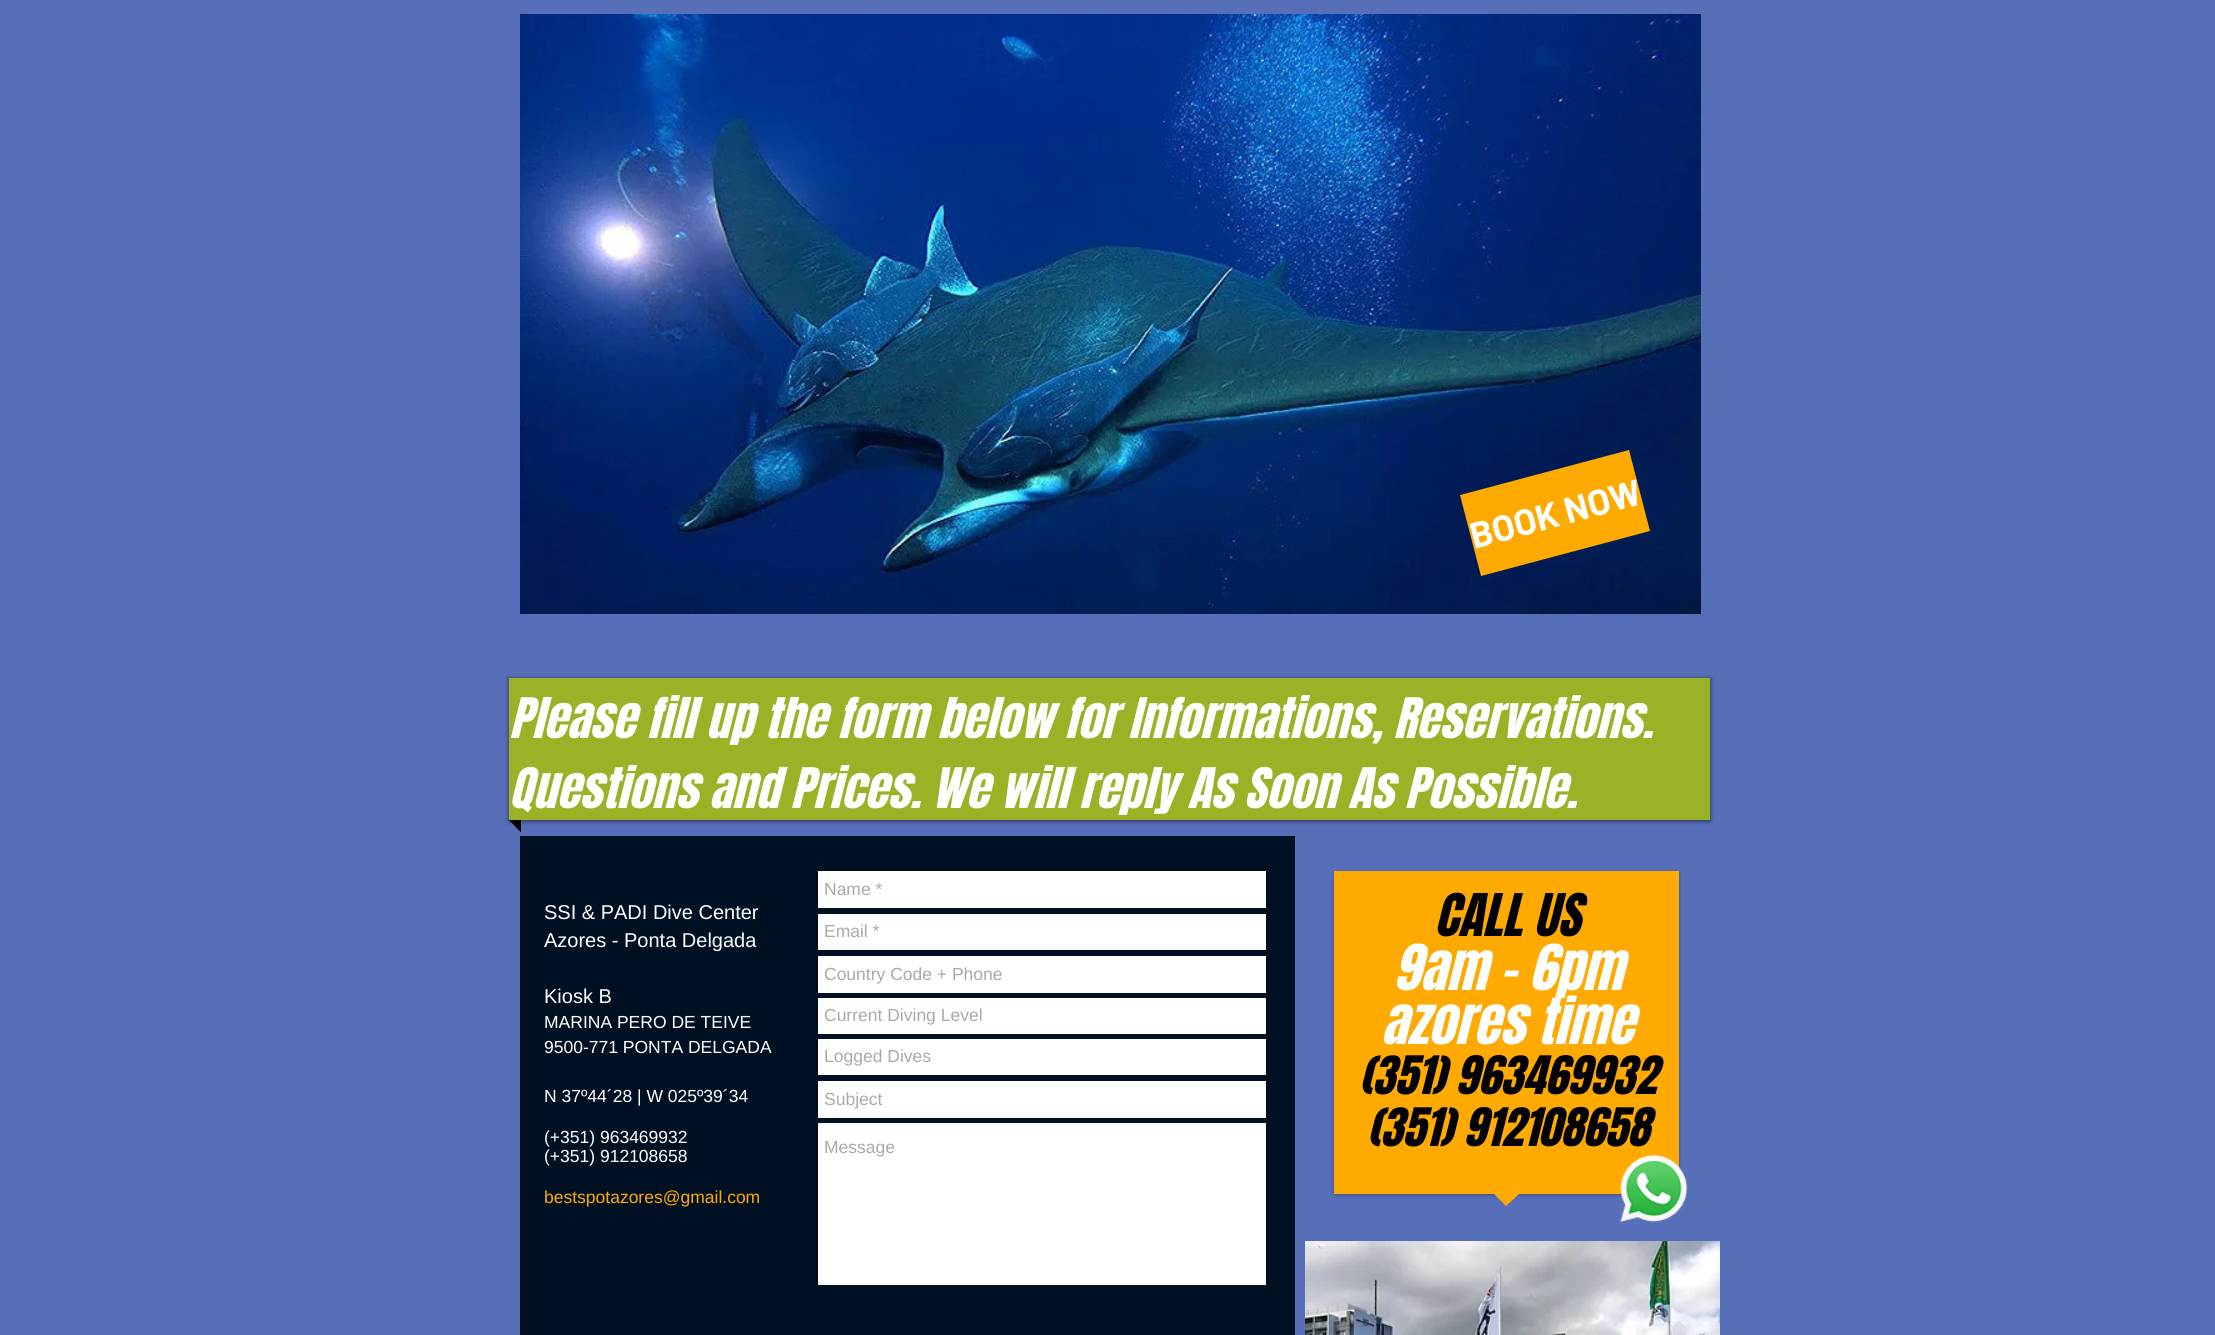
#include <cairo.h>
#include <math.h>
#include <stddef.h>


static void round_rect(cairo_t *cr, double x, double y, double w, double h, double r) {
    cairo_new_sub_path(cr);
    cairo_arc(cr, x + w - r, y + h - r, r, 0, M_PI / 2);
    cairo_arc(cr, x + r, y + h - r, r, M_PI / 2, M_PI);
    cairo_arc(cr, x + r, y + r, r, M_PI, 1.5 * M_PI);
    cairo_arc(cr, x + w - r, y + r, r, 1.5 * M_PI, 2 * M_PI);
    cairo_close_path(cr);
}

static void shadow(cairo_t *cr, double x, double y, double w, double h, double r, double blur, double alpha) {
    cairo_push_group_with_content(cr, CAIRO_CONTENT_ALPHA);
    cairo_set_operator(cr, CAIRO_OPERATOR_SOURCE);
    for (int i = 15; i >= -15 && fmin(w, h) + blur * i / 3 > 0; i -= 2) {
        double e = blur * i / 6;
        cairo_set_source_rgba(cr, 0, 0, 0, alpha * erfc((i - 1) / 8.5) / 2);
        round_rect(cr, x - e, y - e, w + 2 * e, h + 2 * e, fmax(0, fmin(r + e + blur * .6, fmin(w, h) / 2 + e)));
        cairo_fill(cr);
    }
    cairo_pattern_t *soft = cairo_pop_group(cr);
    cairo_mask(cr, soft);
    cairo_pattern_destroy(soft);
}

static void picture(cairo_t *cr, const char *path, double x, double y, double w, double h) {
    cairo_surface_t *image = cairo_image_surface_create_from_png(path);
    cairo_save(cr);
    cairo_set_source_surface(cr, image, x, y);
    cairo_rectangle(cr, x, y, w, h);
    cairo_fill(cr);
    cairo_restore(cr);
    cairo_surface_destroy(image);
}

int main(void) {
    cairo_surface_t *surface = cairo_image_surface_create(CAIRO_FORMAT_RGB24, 2215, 1335);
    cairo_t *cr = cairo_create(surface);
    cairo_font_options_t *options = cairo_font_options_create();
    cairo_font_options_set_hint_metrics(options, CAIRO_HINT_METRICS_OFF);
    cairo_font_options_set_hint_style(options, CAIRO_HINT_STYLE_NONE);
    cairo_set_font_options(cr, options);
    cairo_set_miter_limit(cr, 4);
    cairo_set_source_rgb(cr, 0.337, 0.435, 0.722);
    cairo_paint(cr);
    picture(cr, "img1.png", 520, 14, 1181, 600);
    cairo_set_source_rgb(cr, 1, 0.667, 0);
    cairo_new_path(cr);
    cairo_move_to(cr, 1460, 495);
    cairo_line_to(cr, 1629, 450);
    cairo_line_to(cr, 1650, 531);
    cairo_line_to(cr, 1481, 576);
    cairo_close_path(cr);
    cairo_fill(cr);
    cairo_select_font_face(cr, "Barlow", CAIRO_FONT_SLANT_NORMAL, CAIRO_FONT_WEIGHT_BOLD);
    cairo_set_font_size(cr, 36.25);
    cairo_set_source_rgb(cr, 1, 1, 1);
    cairo_save(cr);
    cairo_translate(cr, 1474, 549);
    cairo_rotate(cr, -15 * M_PI / 180);
    cairo_move_to(cr, 0, 0);
    cairo_show_text(cr, "BOOK NOW");
    cairo_restore(cr);
    cairo_set_source_rgb(cr, 0, 0, 0);
    cairo_new_path(cr);
    cairo_move_to(cr, 509, 820);
    cairo_line_to(cr, 521, 820);
    cairo_line_to(cr, 521, 832.5);
    cairo_close_path(cr);
    cairo_fill(cr);
    cairo_set_source_rgb(cr, 0, 0, 0);
    shadow(cr, 509, 679, 1201, 142, 0, 2.5, 0.6);
    cairo_set_source_rgb(cr, 0.608, 0.698, 0.153);
    cairo_rectangle(cr, 509, 678, 1201, 142);
    cairo_fill(cr);
    cairo_select_font_face(cr, "Anton", CAIRO_FONT_SLANT_ITALIC, CAIRO_FONT_WEIGHT_NORMAL);
    cairo_set_font_size(cr, 47.5);
    cairo_set_source_rgb(cr, 1, 1, 1);
    cairo_move_to(cr, 509, 738);
    cairo_show_text(cr, "Please fill up the form below for Informations, Reservations.");
    cairo_move_to(cr, 509, 808);
    cairo_show_text(cr, "Questions and Prices. We will reply As Soon As Possible.");
    cairo_set_source_rgb(cr, 0, 0.063, 0.137);
    cairo_rectangle(cr, 520, 836, 775, 499);
    cairo_fill(cr);
    cairo_select_font_face(cr, "Liberation Sans", CAIRO_FONT_SLANT_NORMAL, CAIRO_FONT_WEIGHT_NORMAL);
    cairo_set_font_size(cr, 20);
    cairo_set_source_rgb(cr, 1, 1, 1);
    cairo_move_to(cr, 544, 919);
    cairo_show_text(cr, "SSI & PADI Dive Center");
    cairo_move_to(cr, 544, 947);
    cairo_show_text(cr, "Azores - Ponta Delgada");
    cairo_move_to(cr, 544, 1003);
    cairo_show_text(cr, "Kiosk B");
    cairo_set_font_size(cr, 17.5);
    cairo_move_to(cr, 544, 1028);
    cairo_show_text(cr, "MARINA PERO DE TEIVE");
    cairo_move_to(cr, 544, 1053);
    cairo_show_text(cr, "9500-771 PONTA DELGADA");
    cairo_move_to(cr, 544, 1102);
    cairo_show_text(cr, "N 37º44´28 | W 025º39´34");
    cairo_move_to(cr, 544, 1143);
    cairo_show_text(cr, "(+351) 963469932");
    cairo_move_to(cr, 544, 1162);
    cairo_show_text(cr, "(+351) 912108658");
    cairo_set_source_rgb(cr, 1, 0.667, 0);
    cairo_move_to(cr, 544, 1203);
    cairo_show_text(cr, "bestspotazores@gmail.com");
    cairo_set_source_rgb(cr, 1, 1, 1);
    cairo_rectangle(cr, 818, 871, 448, 37);
    cairo_fill(cr);
    cairo_set_source_rgb(cr, 0.663, 0.663, 0.663);
    cairo_move_to(cr, 824, 895);
    cairo_show_text(cr, "Name *");
    cairo_set_source_rgb(cr, 1, 1, 1);
    cairo_rectangle(cr, 818, 914, 448, 36);
    cairo_fill(cr);
    cairo_set_source_rgb(cr, 0.663, 0.663, 0.663);
    cairo_move_to(cr, 824, 937);
    cairo_show_text(cr, "Email *");
    cairo_set_source_rgb(cr, 1, 1, 1);
    cairo_rectangle(cr, 818, 956, 448, 37);
    cairo_fill(cr);
    cairo_set_source_rgb(cr, 0.663, 0.663, 0.663);
    cairo_move_to(cr, 824, 980);
    cairo_show_text(cr, "Country Code + Phone");
    cairo_set_source_rgb(cr, 1, 1, 1);
    cairo_rectangle(cr, 818, 998, 448, 36);
    cairo_fill(cr);
    cairo_set_source_rgb(cr, 0.663, 0.663, 0.663);
    cairo_move_to(cr, 824, 1021);
    cairo_show_text(cr, "Current Diving Level");
    cairo_set_source_rgb(cr, 1, 1, 1);
    cairo_rectangle(cr, 818, 1039, 448, 36);
    cairo_fill(cr);
    cairo_set_source_rgb(cr, 0.663, 0.663, 0.663);
    cairo_move_to(cr, 824, 1062);
    cairo_show_text(cr, "Logged Dives");
    cairo_set_source_rgb(cr, 1, 1, 1);
    cairo_rectangle(cr, 818, 1081, 448, 37);
    cairo_fill(cr);
    cairo_set_source_rgb(cr, 0.663, 0.663, 0.663);
    cairo_move_to(cr, 824, 1105);
    cairo_show_text(cr, "Subject");
    cairo_set_source_rgb(cr, 1, 1, 1);
    cairo_rectangle(cr, 818, 1123, 448, 162);
    cairo_fill(cr);
    cairo_set_source_rgb(cr, 0.663, 0.663, 0.663);
    cairo_move_to(cr, 824, 1153);
    cairo_show_text(cr, "Message");
    cairo_set_source_rgb(cr, 0, 0, 0);
    shadow(cr, 1334, 873, 345, 322, 0, 2, 0.3);
    cairo_set_source_rgb(cr, 1, 0.667, 0);
    cairo_rectangle(cr, 1334, 871, 345, 323);
    cairo_fill(cr);
    cairo_select_font_face(cr, "Anton", CAIRO_FONT_SLANT_ITALIC, CAIRO_FONT_WEIGHT_NORMAL);
    cairo_set_font_size(cr, 50);
    cairo_set_source_rgb(cr, 0, 0, 0);
    cairo_move_to(cr, 1434, 936);
    cairo_show_text(cr, "CALL US");
    cairo_set_font_size(cr, 53.75);
    cairo_set_source_rgb(cr, 1, 1, 1);
    cairo_move_to(cr, 1393, 990);
    cairo_show_text(cr, "9am - 6pm");
    cairo_move_to(cr, 1381, 1044);
    cairo_show_text(cr, "azores time");
    cairo_set_font_size(cr, 45);
    cairo_set_source_rgb(cr, 0, 0, 0);
    cairo_move_to(cr, 1359, 1094);
    cairo_show_text(cr, "(351) 963469932");
    cairo_move_to(cr, 1367, 1146);
    cairo_show_text(cr, "(351) 912108658");
    picture(cr, "img2.png", 1620, 1154, 68, 69);
    cairo_set_source_rgb(cr, 1, 0.667, 0);
    cairo_new_path(cr);
    cairo_move_to(cr, 1494, 1194);
    cairo_line_to(cr, 1519, 1194);
    cairo_line_to(cr, 1506, 1206);
    cairo_close_path(cr);
    cairo_fill(cr);
    picture(cr, "img3.png", 1305, 1241, 415, 94);
    cairo_surface_write_to_png(surface, "page.png");
    cairo_font_options_destroy(options);
    cairo_destroy(cr);
    cairo_surface_destroy(surface);
    return 0;
}
